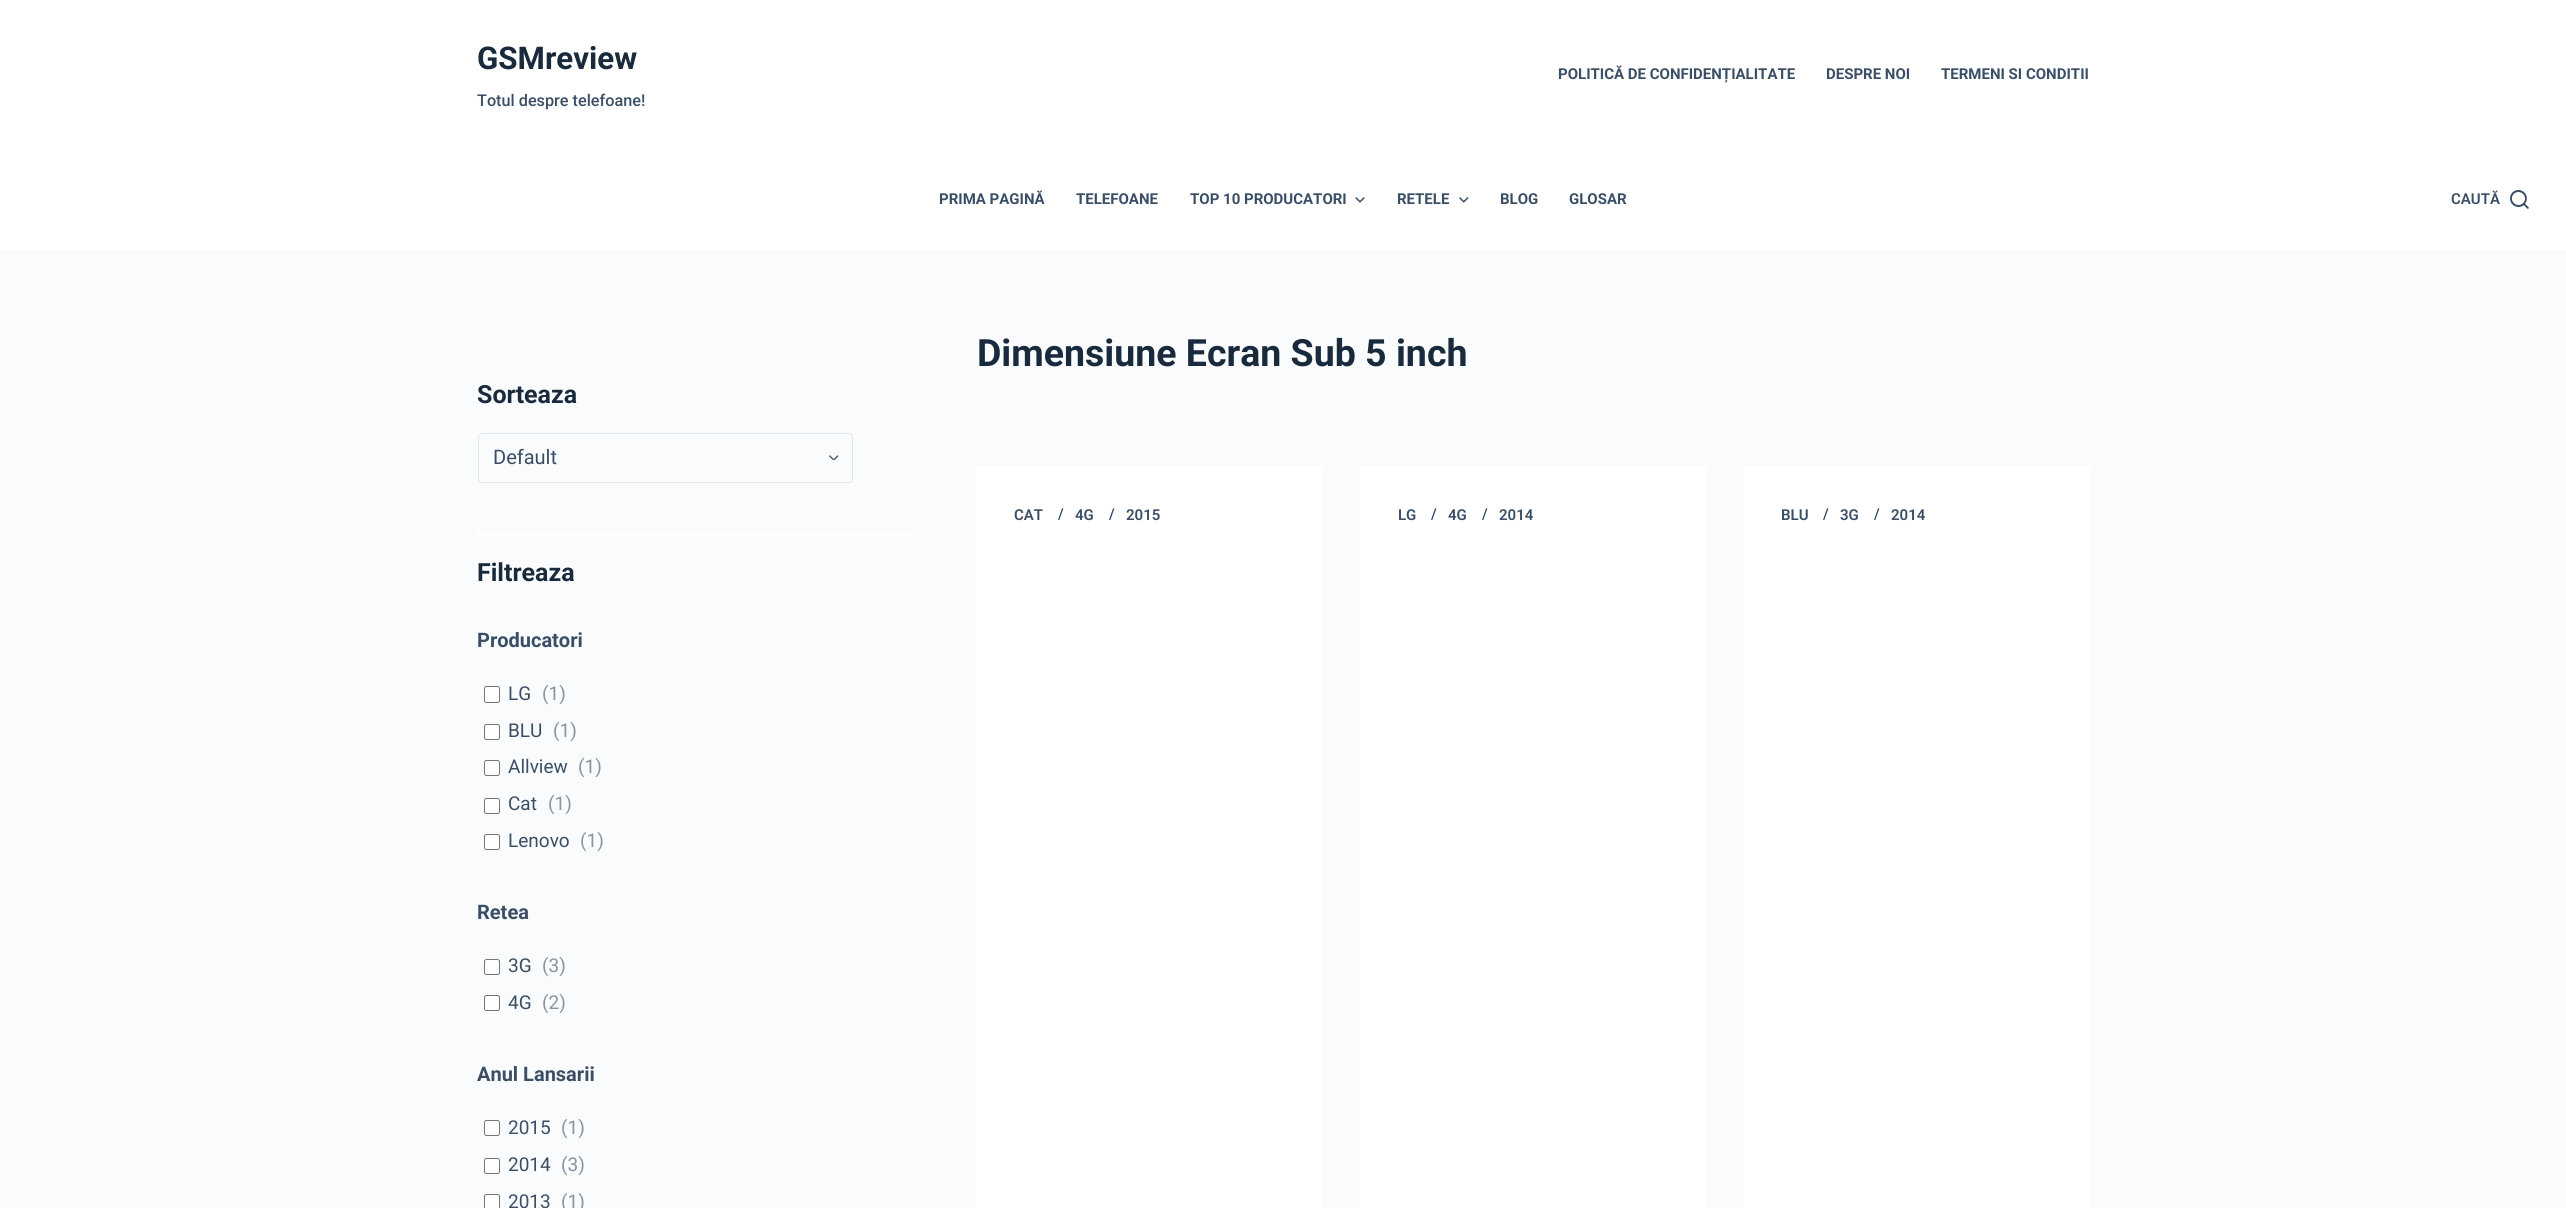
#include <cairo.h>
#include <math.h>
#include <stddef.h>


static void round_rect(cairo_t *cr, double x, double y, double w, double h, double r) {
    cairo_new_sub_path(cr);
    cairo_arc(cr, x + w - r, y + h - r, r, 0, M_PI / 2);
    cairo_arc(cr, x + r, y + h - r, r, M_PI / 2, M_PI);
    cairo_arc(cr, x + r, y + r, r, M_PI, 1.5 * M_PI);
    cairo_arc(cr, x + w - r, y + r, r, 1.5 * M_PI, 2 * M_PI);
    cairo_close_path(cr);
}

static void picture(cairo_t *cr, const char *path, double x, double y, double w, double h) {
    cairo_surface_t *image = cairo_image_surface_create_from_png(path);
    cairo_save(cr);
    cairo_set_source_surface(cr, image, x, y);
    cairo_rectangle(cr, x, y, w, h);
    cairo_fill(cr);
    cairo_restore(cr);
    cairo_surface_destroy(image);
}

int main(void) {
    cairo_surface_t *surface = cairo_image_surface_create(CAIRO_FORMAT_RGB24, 2566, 1208);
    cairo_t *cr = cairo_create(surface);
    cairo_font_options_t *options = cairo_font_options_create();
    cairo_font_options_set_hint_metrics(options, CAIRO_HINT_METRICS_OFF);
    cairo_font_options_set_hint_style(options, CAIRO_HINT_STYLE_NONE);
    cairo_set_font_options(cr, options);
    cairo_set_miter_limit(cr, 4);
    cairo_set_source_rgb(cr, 0.98, 0.984, 0.988);
    cairo_paint(cr);
    cairo_set_source_rgb(cr, 1, 1, 1);
    cairo_rectangle(cr, 0, 0, 2566, 250);
    cairo_fill(cr);
    cairo_select_font_face(cr, "Roboto", CAIRO_FONT_SLANT_NORMAL, CAIRO_FONT_WEIGHT_BOLD);
    cairo_set_font_size(cr, 31.25);
    cairo_set_source_rgb(cr, 0.098, 0.165, 0.239);
    cairo_move_to(cr, 477, 69);
    cairo_show_text(cr, "GSMreview");
    cairo_select_font_face(cr, "Roboto Medium", CAIRO_FONT_SLANT_NORMAL, CAIRO_FONT_WEIGHT_NORMAL);
    cairo_set_font_size(cr, 16.25);
    cairo_set_source_rgb(cr, 0.227, 0.31, 0.4);
    cairo_move_to(cr, 477, 106);
    cairo_show_text(cr, "Totul despre telefoane!");
    cairo_select_font_face(cr, "Roboto", CAIRO_FONT_SLANT_NORMAL, CAIRO_FONT_WEIGHT_BOLD);
    cairo_set_font_size(cr, 15);
    cairo_move_to(cr, 1558, 79);
    cairo_show_text(cr, "POLITICĂ DE CONFIDENȚIALITATE");
    cairo_move_to(cr, 1826, 79);
    cairo_show_text(cr, "DESPRE NOI");
    cairo_move_to(cr, 1941, 79);
    cairo_show_text(cr, "TERMENI SI CONDITII");
    cairo_move_to(cr, 939, 204);
    cairo_show_text(cr, "PRIMA PAGINĂ");
    cairo_move_to(cr, 1076, 204);
    cairo_show_text(cr, "TELEFOANE");
    cairo_move_to(cr, 1190, 204);
    cairo_show_text(cr, "TOP 10 PRODUCATORI");
    picture(cr, "img1.png", 1355, 197, 10, 6);
    cairo_move_to(cr, 1397, 204);
    cairo_show_text(cr, "RETELE");
    picture(cr, "img2.png", 1459, 197, 10, 6);
    cairo_move_to(cr, 1500, 204);
    cairo_show_text(cr, "BLOG");
    cairo_move_to(cr, 1569, 204);
    cairo_show_text(cr, "GLOSAR");
    cairo_select_font_face(cr, "Roboto SemiBold", CAIRO_FONT_SLANT_NORMAL, CAIRO_FONT_WEIGHT_NORMAL);
    cairo_move_to(cr, 2451, 204);
    cairo_show_text(cr, "CAUTĂ");
    picture(cr, "img3.png", 2510, 190, 19, 19);
    cairo_select_font_face(cr, "Roboto", CAIRO_FONT_SLANT_NORMAL, CAIRO_FONT_WEIGHT_BOLD);
    cairo_set_font_size(cr, 25);
    cairo_set_source_rgb(cr, 0.098, 0.165, 0.239);
    cairo_move_to(cr, 477, 403);
    cairo_show_text(cr, "Sorteaza");
    picture(cr, "img4.png", 829, 455, 10, 5);
    round_rect(cr, 478.5, 433.5, 374, 49, 3.5);
    cairo_set_source_rgb(cr, 0.882, 0.91, 0.929);
    cairo_set_line_width(cr, 1);
    cairo_stroke(cr);
    cairo_select_font_face(cr, "Roboto", CAIRO_FONT_SLANT_NORMAL, CAIRO_FONT_WEIGHT_NORMAL);
    cairo_set_font_size(cr, 20);
    cairo_set_source_rgb(cr, 0.227, 0.31, 0.4);
    cairo_move_to(cr, 493, 464);
    cairo_show_text(cr, "Default");
    cairo_set_source_rgb(cr, 1, 1, 1);
    cairo_rectangle(cr, 478, 533, 435, 3);
    cairo_fill(cr);
    cairo_rectangle(cr, 478, 531, 435, 1);
    cairo_fill(cr);
    cairo_select_font_face(cr, "Roboto", CAIRO_FONT_SLANT_NORMAL, CAIRO_FONT_WEIGHT_BOLD);
    cairo_set_font_size(cr, 25);
    cairo_set_source_rgb(cr, 0.098, 0.165, 0.239);
    cairo_move_to(cr, 477, 581);
    cairo_show_text(cr, "Filtreaza");
    cairo_set_font_size(cr, 20);
    cairo_set_source_rgb(cr, 0.227, 0.31, 0.4);
    cairo_move_to(cr, 477, 647);
    cairo_show_text(cr, "Producatori");
    cairo_set_source_rgb(cr, 1, 1, 1);
    round_rect(cr, 484.5, 686.5, 15, 16, 2);
    cairo_fill_preserve(cr);
    cairo_set_source_rgb(cr, 0.463, 0.463, 0.463);
    cairo_stroke(cr);
    cairo_select_font_face(cr, "Roboto", CAIRO_FONT_SLANT_NORMAL, CAIRO_FONT_WEIGHT_NORMAL);
    cairo_set_font_size(cr, 19);
    cairo_set_source_rgb(cr, 0.227, 0.31, 0.4);
    cairo_move_to(cr, 508, 700);
    cairo_show_text(cr, "LG");
    cairo_set_source_rgb(cr, 0.529, 0.58, 0.635);
    cairo_move_to(cr, 542, 700);
    cairo_show_text(cr, "(1)");
    cairo_set_source_rgb(cr, 1, 1, 1);
    round_rect(cr, 484.5, 724.5, 15, 15, 2);
    cairo_fill_preserve(cr);
    cairo_set_source_rgb(cr, 0.463, 0.463, 0.463);
    cairo_stroke(cr);
    cairo_set_source_rgb(cr, 0.227, 0.31, 0.4);
    cairo_move_to(cr, 508, 737);
    cairo_show_text(cr, "BLU");
    cairo_set_source_rgb(cr, 0.529, 0.58, 0.635);
    cairo_move_to(cr, 553, 737);
    cairo_show_text(cr, "(1)");
    cairo_set_source_rgb(cr, 1, 1, 1);
    round_rect(cr, 484.5, 760.5, 15, 15, 2);
    cairo_fill_preserve(cr);
    cairo_set_source_rgb(cr, 0.463, 0.463, 0.463);
    cairo_stroke(cr);
    cairo_set_source_rgb(cr, 0.227, 0.31, 0.4);
    cairo_move_to(cr, 508, 773);
    cairo_show_text(cr, "Allview");
    cairo_set_source_rgb(cr, 0.529, 0.58, 0.635);
    cairo_move_to(cr, 578, 773);
    cairo_show_text(cr, "(1)");
    cairo_set_source_rgb(cr, 1, 1, 1);
    round_rect(cr, 484.5, 798.5, 15, 15, 2);
    cairo_fill_preserve(cr);
    cairo_set_source_rgb(cr, 0.463, 0.463, 0.463);
    cairo_stroke(cr);
    cairo_set_source_rgb(cr, 0.227, 0.31, 0.4);
    cairo_move_to(cr, 508, 810);
    cairo_show_text(cr, "Cat");
    cairo_set_source_rgb(cr, 0.529, 0.58, 0.635);
    cairo_move_to(cr, 548, 810);
    cairo_show_text(cr, "(1)");
    cairo_set_source_rgb(cr, 1, 1, 1);
    round_rect(cr, 484.5, 834.5, 15, 15, 2);
    cairo_fill_preserve(cr);
    cairo_set_source_rgb(cr, 0.463, 0.463, 0.463);
    cairo_stroke(cr);
    cairo_set_source_rgb(cr, 0.227, 0.31, 0.4);
    cairo_move_to(cr, 508, 847);
    cairo_show_text(cr, "Lenovo");
    cairo_set_source_rgb(cr, 0.529, 0.58, 0.635);
    cairo_move_to(cr, 580, 847);
    cairo_show_text(cr, "(1)");
    cairo_select_font_face(cr, "Roboto", CAIRO_FONT_SLANT_NORMAL, CAIRO_FONT_WEIGHT_BOLD);
    cairo_set_font_size(cr, 20);
    cairo_set_source_rgb(cr, 0.227, 0.31, 0.4);
    cairo_move_to(cr, 477, 919);
    cairo_show_text(cr, "Retea");
    cairo_set_source_rgb(cr, 1, 1, 1);
    round_rect(cr, 484.5, 959.5, 15, 15, 2);
    cairo_fill_preserve(cr);
    cairo_set_source_rgb(cr, 0.463, 0.463, 0.463);
    cairo_stroke(cr);
    cairo_select_font_face(cr, "Roboto", CAIRO_FONT_SLANT_NORMAL, CAIRO_FONT_WEIGHT_NORMAL);
    cairo_set_font_size(cr, 19);
    cairo_set_source_rgb(cr, 0.227, 0.31, 0.4);
    cairo_move_to(cr, 508, 972);
    cairo_show_text(cr, "3G");
    cairo_set_source_rgb(cr, 0.529, 0.58, 0.635);
    cairo_move_to(cr, 542, 972);
    cairo_show_text(cr, "(3)");
    cairo_set_source_rgb(cr, 1, 1, 1);
    round_rect(cr, 484.5, 995.5, 15, 15, 2);
    cairo_fill_preserve(cr);
    cairo_set_source_rgb(cr, 0.463, 0.463, 0.463);
    cairo_stroke(cr);
    cairo_set_source_rgb(cr, 0.227, 0.31, 0.4);
    cairo_move_to(cr, 508, 1009);
    cairo_show_text(cr, "4G");
    cairo_set_source_rgb(cr, 0.529, 0.58, 0.635);
    cairo_move_to(cr, 542, 1009);
    cairo_show_text(cr, "(2)");
    cairo_select_font_face(cr, "Roboto", CAIRO_FONT_SLANT_NORMAL, CAIRO_FONT_WEIGHT_BOLD);
    cairo_set_font_size(cr, 20);
    cairo_set_source_rgb(cr, 0.227, 0.31, 0.4);
    cairo_move_to(cr, 477, 1081);
    cairo_show_text(cr, "Anul Lansarii");
    cairo_set_source_rgb(cr, 1, 1, 1);
    round_rect(cr, 484.5, 1120.5, 15, 15, 2);
    cairo_fill_preserve(cr);
    cairo_set_source_rgb(cr, 0.463, 0.463, 0.463);
    cairo_stroke(cr);
    cairo_select_font_face(cr, "Roboto", CAIRO_FONT_SLANT_NORMAL, CAIRO_FONT_WEIGHT_NORMAL);
    cairo_set_font_size(cr, 19);
    cairo_set_source_rgb(cr, 0.227, 0.31, 0.4);
    cairo_move_to(cr, 508, 1134);
    cairo_show_text(cr, "2015");
    cairo_set_source_rgb(cr, 0.529, 0.58, 0.635);
    cairo_move_to(cr, 561, 1134);
    cairo_show_text(cr, "(1)");
    cairo_set_source_rgb(cr, 1, 1, 1);
    round_rect(cr, 484.5, 1158.5, 15, 15, 2);
    cairo_fill_preserve(cr);
    cairo_set_source_rgb(cr, 0.463, 0.463, 0.463);
    cairo_stroke(cr);
    cairo_set_source_rgb(cr, 0.227, 0.31, 0.4);
    cairo_move_to(cr, 508, 1171);
    cairo_show_text(cr, "2014");
    cairo_set_source_rgb(cr, 0.529, 0.58, 0.635);
    cairo_move_to(cr, 561, 1171);
    cairo_show_text(cr, "(3)");
    cairo_set_source_rgb(cr, 1, 1, 1);
    round_rect(cr, 484.5, 1194.5, 15, 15, 2);
    cairo_fill_preserve(cr);
    cairo_set_source_rgb(cr, 0.463, 0.463, 0.463);
    cairo_stroke(cr);
    cairo_set_source_rgb(cr, 0.227, 0.31, 0.4);
    cairo_move_to(cr, 508, 1208);
    cairo_show_text(cr, "2013");
    cairo_set_source_rgb(cr, 0.529, 0.58, 0.635);
    cairo_move_to(cr, 561, 1208);
    cairo_show_text(cr, "(1)");
    cairo_select_font_face(cr, "Roboto", CAIRO_FONT_SLANT_NORMAL, CAIRO_FONT_WEIGHT_BOLD);
    cairo_set_font_size(cr, 37.5);
    cairo_set_source_rgb(cr, 0.098, 0.165, 0.239);
    cairo_move_to(cr, 977, 366);
    cairo_show_text(cr, "Dimensiune Ecran Sub 5 inch");
    cairo_set_source_rgb(cr, 1, 1, 1);
    cairo_rectangle(cr, 976, 466, 347, 742);
    cairo_fill(cr);
    cairo_select_font_face(cr, "Roboto SemiBold", CAIRO_FONT_SLANT_NORMAL, CAIRO_FONT_WEIGHT_NORMAL);
    cairo_set_font_size(cr, 15);
    cairo_set_source_rgb(cr, 0.227, 0.31, 0.4);
    cairo_move_to(cr, 1014, 520);
    cairo_show_text(cr, "CAT");
    cairo_move_to(cr, 1058, 519);
    cairo_show_text(cr, "/");
    cairo_move_to(cr, 1075, 520);
    cairo_show_text(cr, "4G");
    cairo_move_to(cr, 1109, 519);
    cairo_show_text(cr, "/");
    cairo_move_to(cr, 1126, 520);
    cairo_show_text(cr, "2015");
    cairo_set_source_rgb(cr, 1, 1, 1);
    cairo_rectangle(cr, 1360, 466, 346, 742);
    cairo_fill(cr);
    cairo_set_source_rgb(cr, 0.227, 0.31, 0.4);
    cairo_move_to(cr, 1398, 520);
    cairo_show_text(cr, "LG");
    cairo_move_to(cr, 1431, 519);
    cairo_show_text(cr, "/");
    cairo_move_to(cr, 1448, 520);
    cairo_show_text(cr, "4G");
    cairo_move_to(cr, 1482, 519);
    cairo_show_text(cr, "/");
    cairo_move_to(cr, 1499, 520);
    cairo_show_text(cr, "2014");
    cairo_set_source_rgb(cr, 1, 1, 1);
    cairo_rectangle(cr, 1744, 466, 346, 742);
    cairo_fill(cr);
    cairo_set_source_rgb(cr, 0.227, 0.31, 0.4);
    cairo_move_to(cr, 1781, 520);
    cairo_show_text(cr, "BLU");
    cairo_move_to(cr, 1823, 519);
    cairo_show_text(cr, "/");
    cairo_move_to(cr, 1840, 520);
    cairo_show_text(cr, "3G");
    cairo_move_to(cr, 1874, 519);
    cairo_show_text(cr, "/");
    cairo_move_to(cr, 1891, 520);
    cairo_show_text(cr, "2014");
    cairo_surface_write_to_png(surface, "page.png");
    cairo_font_options_destroy(options);
    cairo_destroy(cr);
    cairo_surface_destroy(surface);
    return 0;
}
